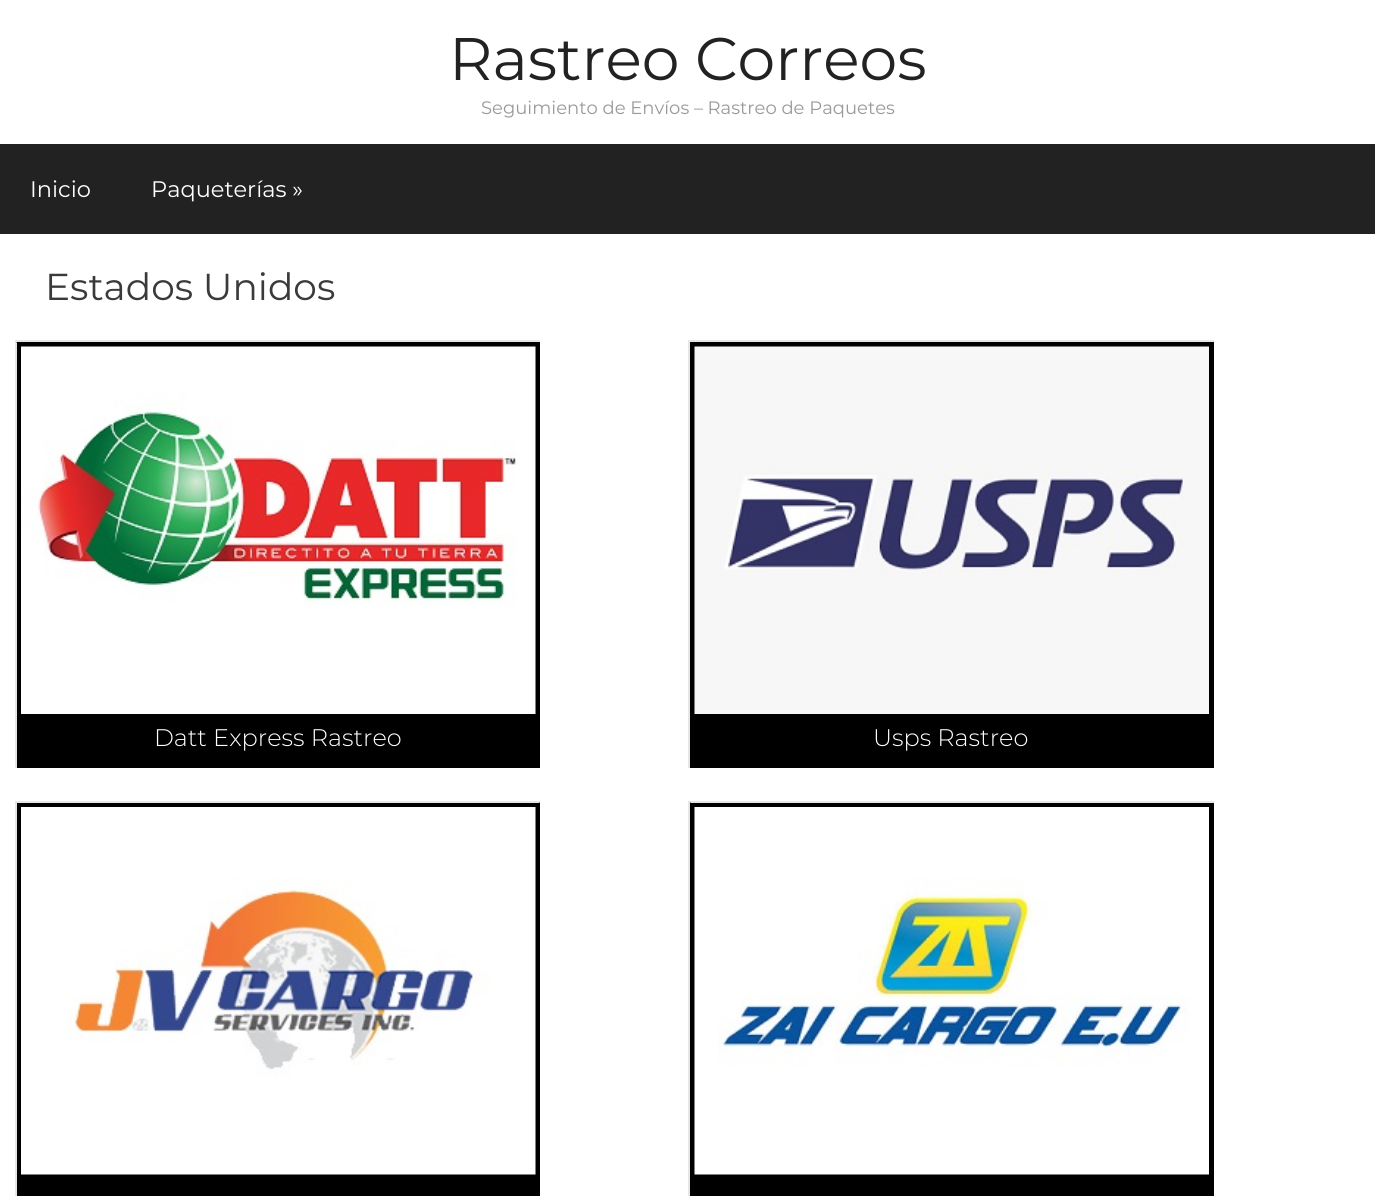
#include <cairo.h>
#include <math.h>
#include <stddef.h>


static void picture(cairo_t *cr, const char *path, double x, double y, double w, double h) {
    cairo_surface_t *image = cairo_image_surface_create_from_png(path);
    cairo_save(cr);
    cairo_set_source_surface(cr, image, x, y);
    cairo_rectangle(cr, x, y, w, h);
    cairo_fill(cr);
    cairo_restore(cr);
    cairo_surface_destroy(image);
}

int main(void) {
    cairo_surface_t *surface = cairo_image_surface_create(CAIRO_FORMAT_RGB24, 1375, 1196);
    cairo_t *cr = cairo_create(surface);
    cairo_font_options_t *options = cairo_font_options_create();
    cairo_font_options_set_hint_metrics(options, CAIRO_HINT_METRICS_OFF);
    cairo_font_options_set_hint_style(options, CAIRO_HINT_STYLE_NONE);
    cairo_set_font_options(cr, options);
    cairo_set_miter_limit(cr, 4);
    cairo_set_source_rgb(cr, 0.133, 0.133, 0.133);
    cairo_paint(cr);
    cairo_set_source_rgb(cr, 1, 1, 1);
    cairo_rectangle(cr, 0, 0, 1375, 144);
    cairo_fill(cr);
    cairo_select_font_face(cr, "Montserrat", CAIRO_FONT_SLANT_NORMAL, CAIRO_FONT_WEIGHT_NORMAL);
    cairo_set_font_size(cr, 60);
    cairo_set_source_rgb(cr, 0.133, 0.133, 0.133);
    cairo_move_to(cr, 449, 80);
    cairo_show_text(cr, "Rastreo Correos");
    cairo_set_font_size(cr, 18);
    cairo_set_source_rgb(cr, 0.6, 0.6, 0.6);
    cairo_move_to(cr, 481, 114);
    cairo_show_text(cr, "Seguimiento de Envíos – Rastreo de Paquetes");
    cairo_set_font_size(cr, 22.5);
    cairo_set_source_rgb(cr, 1, 1, 1);
    cairo_move_to(cr, 30, 197);
    cairo_show_text(cr, "Inicio");
    cairo_move_to(cr, 151, 197);
    cairo_show_text(cr, "Paqueterías »");
    cairo_rectangle(cr, 0, 234, 1375, 962);
    cairo_fill(cr);
    cairo_set_font_size(cr, 37.5);
    cairo_set_source_rgb(cr, 0.227, 0.227, 0.227);
    cairo_move_to(cr, 45, 300);
    cairo_show_text(cr, "Estados Unidos");
    cairo_set_source_rgb(cr, 0.902, 0.902, 0.902);
    cairo_new_path(cr);
    cairo_move_to(cr, 15, 340);
    cairo_line_to(cr, 540, 340);
    cairo_line_to(cr, 540, 342);
    cairo_line_to(cr, 16, 342);
    cairo_close_path(cr);
    cairo_fill(cr);
    cairo_set_source_rgba(cr, 0, 0, 0, 0.1);
    cairo_new_path(cr);
    cairo_move_to(cr, 15, 768);
    cairo_line_to(cr, 15, 340);
    cairo_line_to(cr, 16, 342);
    cairo_line_to(cr, 16, 768);
    cairo_close_path(cr);
    cairo_fill(cr);
    cairo_set_source_rgb(cr, 0, 0, 0);
    cairo_rectangle(cr, 17, 342, 523, 426);
    cairo_fill(cr);
    cairo_new_path(cr);
    cairo_move_to(cr, 16, 342);
    cairo_line_to(cr, 540, 342);
    cairo_line_to(cr, 536, 346);
    cairo_line_to(cr, 21, 346);
    cairo_close_path(cr);
    cairo_fill(cr);
    cairo_set_source_rgba(cr, 0, 0, 0, 0.1);
    cairo_new_path(cr);
    cairo_move_to(cr, 16, 768);
    cairo_line_to(cr, 16, 342);
    cairo_line_to(cr, 21, 346);
    cairo_line_to(cr, 21, 768);
    cairo_close_path(cr);
    cairo_fill(cr);
    picture(cr, "img1.png", 21, 346, 515, 368);
    cairo_select_font_face(cr, "Montserrat Light", CAIRO_FONT_SLANT_NORMAL, CAIRO_FONT_WEIGHT_NORMAL);
    cairo_set_font_size(cr, 24);
    cairo_set_source_rgb(cr, 1, 1, 1);
    cairo_move_to(cr, 154, 746);
    cairo_show_text(cr, "Datt Express Rastreo");
    cairo_set_source_rgb(cr, 0.902, 0.902, 0.902);
    cairo_new_path(cr);
    cairo_move_to(cr, 688, 340);
    cairo_line_to(cr, 1214, 340);
    cairo_line_to(cr, 1214, 342);
    cairo_line_to(cr, 690, 342);
    cairo_close_path(cr);
    cairo_fill(cr);
    cairo_set_source_rgba(cr, 0, 0, 0, 0.1);
    cairo_new_path(cr);
    cairo_move_to(cr, 688, 768);
    cairo_line_to(cr, 688, 340);
    cairo_line_to(cr, 690, 342);
    cairo_line_to(cr, 690, 768);
    cairo_close_path(cr);
    cairo_fill(cr);
    cairo_set_source_rgb(cr, 0, 0, 0);
    cairo_rectangle(cr, 690, 342, 524, 426);
    cairo_fill(cr);
    picture(cr, "img2.png", 694, 346, 515, 368);
    cairo_set_source_rgb(cr, 1, 1, 1);
    cairo_move_to(cr, 873, 746);
    cairo_show_text(cr, "Usps Rastreo");
    cairo_set_source_rgb(cr, 0.902, 0.902, 0.902);
    cairo_new_path(cr);
    cairo_move_to(cr, 15, 801);
    cairo_line_to(cr, 540, 801);
    cairo_line_to(cr, 540, 802);
    cairo_line_to(cr, 16, 802);
    cairo_close_path(cr);
    cairo_fill(cr);
    cairo_set_source_rgba(cr, 0, 0, 0, 0.1);
    cairo_new_path(cr);
    cairo_move_to(cr, 15, 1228);
    cairo_line_to(cr, 15, 801);
    cairo_line_to(cr, 16, 802);
    cairo_line_to(cr, 16, 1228);
    cairo_close_path(cr);
    cairo_fill(cr);
    cairo_set_source_rgb(cr, 0, 0, 0);
    cairo_rectangle(cr, 17, 803, 523, 393);
    cairo_fill(cr);
    cairo_set_source_rgba(cr, 0, 0, 0, 0.1);
    cairo_new_path(cr);
    cairo_move_to(cr, 16, 802);
    cairo_line_to(cr, 540, 802);
    cairo_line_to(cr, 536, 807);
    cairo_line_to(cr, 21, 807);
    cairo_close_path(cr);
    cairo_fill(cr);
    cairo_set_source_rgb(cr, 0, 0, 0);
    cairo_new_path(cr);
    cairo_move_to(cr, 540, 802);
    cairo_line_to(cr, 540, 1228);
    cairo_line_to(cr, 536, 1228);
    cairo_line_to(cr, 536, 807);
    cairo_close_path(cr);
    cairo_fill(cr);
    cairo_set_source_rgba(cr, 0, 0, 0, 0.1);
    cairo_new_path(cr);
    cairo_move_to(cr, 16, 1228);
    cairo_line_to(cr, 16, 802);
    cairo_line_to(cr, 21, 807);
    cairo_line_to(cr, 21, 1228);
    cairo_close_path(cr);
    cairo_fill(cr);
    picture(cr, "img3.png", 21, 807, 515, 368);
    cairo_set_source_rgb(cr, 0.902, 0.902, 0.902);
    cairo_new_path(cr);
    cairo_move_to(cr, 688, 801);
    cairo_line_to(cr, 1214, 801);
    cairo_line_to(cr, 1214, 802);
    cairo_line_to(cr, 690, 802);
    cairo_close_path(cr);
    cairo_fill(cr);
    cairo_set_source_rgba(cr, 0, 0, 0, 0.1);
    cairo_new_path(cr);
    cairo_move_to(cr, 688, 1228);
    cairo_line_to(cr, 688, 801);
    cairo_line_to(cr, 690, 802);
    cairo_line_to(cr, 690, 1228);
    cairo_close_path(cr);
    cairo_fill(cr);
    cairo_set_source_rgb(cr, 0, 0, 0);
    cairo_rectangle(cr, 690, 803, 524, 393);
    cairo_fill(cr);
    cairo_set_source_rgba(cr, 0, 0, 0, 0.1);
    cairo_new_path(cr);
    cairo_move_to(cr, 690, 802);
    cairo_line_to(cr, 1214, 802);
    cairo_line_to(cr, 1209, 807);
    cairo_line_to(cr, 694, 807);
    cairo_close_path(cr);
    cairo_fill(cr);
    cairo_new_path(cr);
    cairo_move_to(cr, 1214, 802);
    cairo_line_to(cr, 1214, 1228);
    cairo_line_to(cr, 1209, 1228);
    cairo_line_to(cr, 1209, 807);
    cairo_close_path(cr);
    cairo_fill(cr);
    cairo_set_source_rgb(cr, 0, 0, 0);
    cairo_new_path(cr);
    cairo_move_to(cr, 690, 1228);
    cairo_line_to(cr, 690, 802);
    cairo_line_to(cr, 694, 807);
    cairo_line_to(cr, 694, 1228);
    cairo_close_path(cr);
    cairo_fill(cr);
    picture(cr, "img4.png", 694, 807, 515, 368);
    cairo_surface_write_to_png(surface, "page.png");
    cairo_font_options_destroy(options);
    cairo_destroy(cr);
    cairo_surface_destroy(surface);
    return 0;
}
